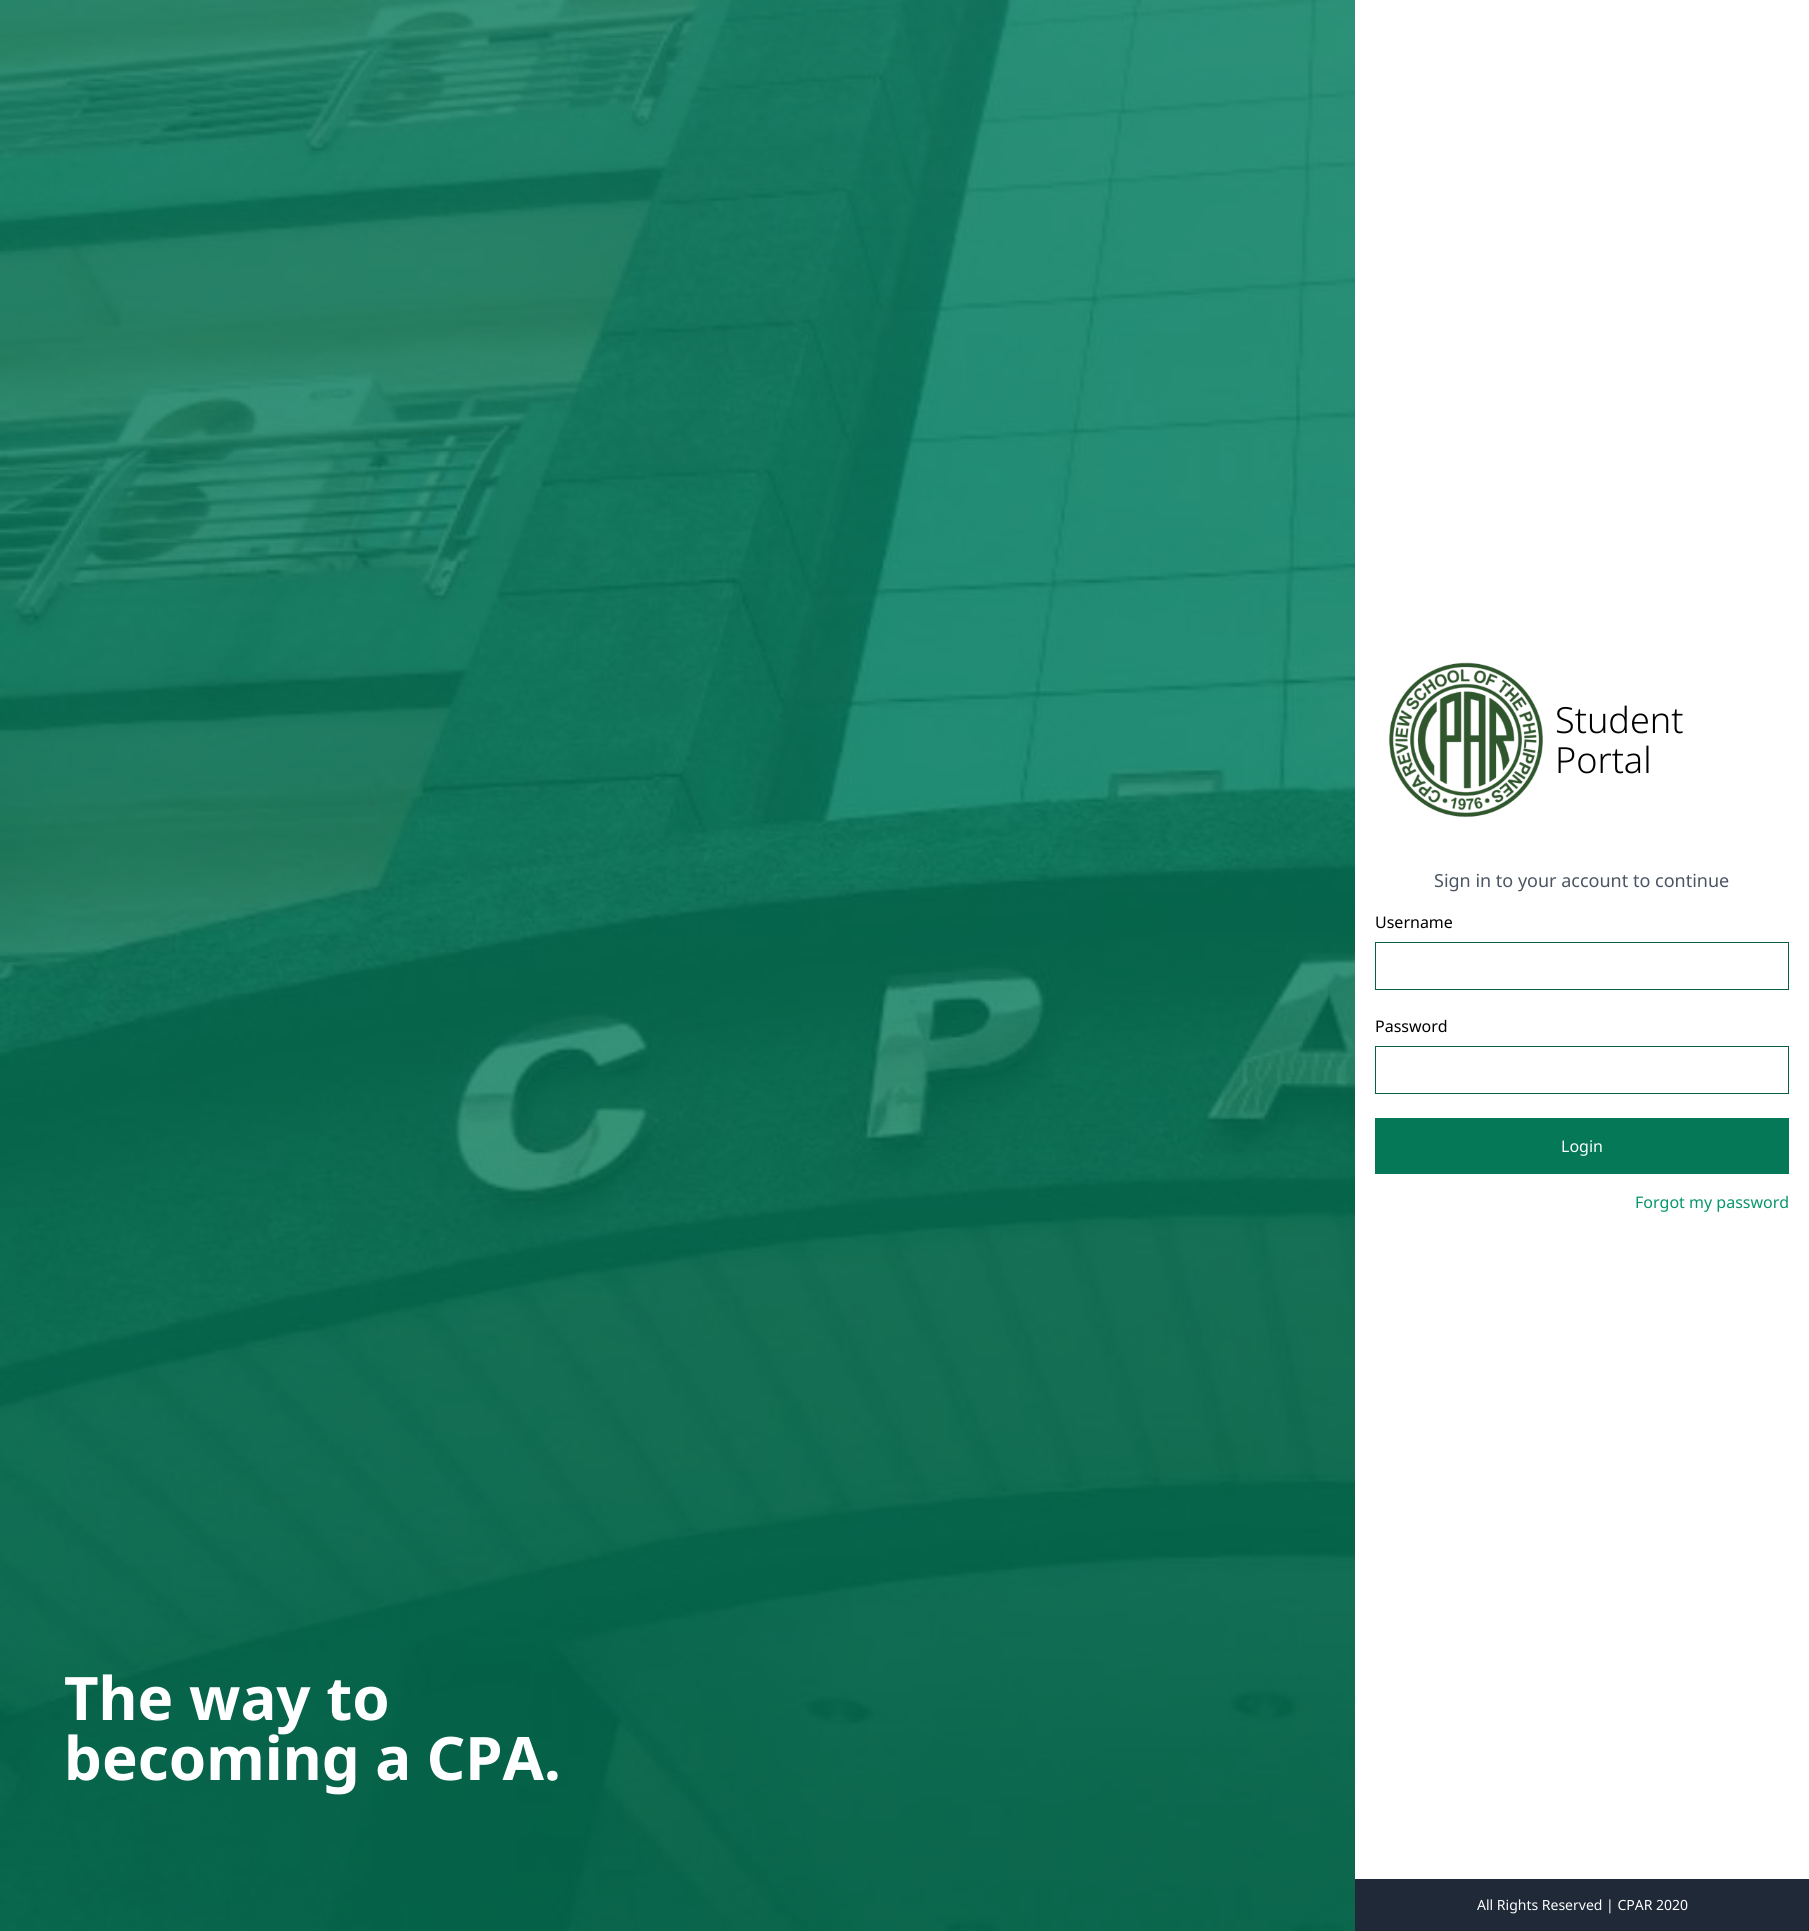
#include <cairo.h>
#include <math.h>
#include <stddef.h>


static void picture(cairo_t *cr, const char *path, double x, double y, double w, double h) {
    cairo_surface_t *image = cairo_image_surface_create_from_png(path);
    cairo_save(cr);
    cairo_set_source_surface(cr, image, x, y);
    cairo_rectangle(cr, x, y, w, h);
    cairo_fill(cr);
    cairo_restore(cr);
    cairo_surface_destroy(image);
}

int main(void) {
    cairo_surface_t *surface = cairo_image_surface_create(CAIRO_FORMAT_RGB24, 1809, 1931);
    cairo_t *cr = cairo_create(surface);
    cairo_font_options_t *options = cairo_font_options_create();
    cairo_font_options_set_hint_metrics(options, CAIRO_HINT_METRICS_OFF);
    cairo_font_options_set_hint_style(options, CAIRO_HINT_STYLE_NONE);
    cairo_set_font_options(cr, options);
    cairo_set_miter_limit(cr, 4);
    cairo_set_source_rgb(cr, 1, 1, 1);
    cairo_paint(cr);
    picture(cr, "img1.png", 0, 0, 1355, 1931);
    cairo_select_font_face(cr, "Noto Sans", CAIRO_FONT_SLANT_NORMAL, CAIRO_FONT_WEIGHT_BOLD);
    cairo_set_font_size(cr, 60);
    cairo_set_source_rgb(cr, 1, 1, 1);
    cairo_move_to(cr, 64, 1720);
    cairo_show_text(cr, "The way to");
    cairo_move_to(cr, 64, 1780);
    cairo_show_text(cr, "becoming a CPA.");
    picture(cr, "img2.png", 1389, 662, 154, 156);
    cairo_select_font_face(cr, "Noto Sans Light", CAIRO_FONT_SLANT_NORMAL, CAIRO_FONT_WEIGHT_NORMAL);
    cairo_set_font_size(cr, 36);
    cairo_set_source_rgb(cr, 0, 0, 0);
    cairo_move_to(cr, 1555, 733);
    cairo_show_text(cr, "Student");
    cairo_move_to(cr, 1555, 773);
    cairo_show_text(cr, "Portal");
    cairo_select_font_face(cr, "Noto Sans", CAIRO_FONT_SLANT_NORMAL, CAIRO_FONT_WEIGHT_NORMAL);
    cairo_set_font_size(cr, 18);
    cairo_set_source_rgb(cr, 0.294, 0.333, 0.388);
    cairo_move_to(cr, 1434, 887);
    cairo_show_text(cr, "Sign in to your account to continue");
    cairo_set_font_size(cr, 16);
    cairo_set_source_rgb(cr, 0, 0, 0);
    cairo_move_to(cr, 1375, 928);
    cairo_show_text(cr, "Username");
    cairo_rectangle(cr, 1375.5, 942.5, 413, 47);
    cairo_set_source_rgb(cr, 0.024, 0.373, 0.275);
    cairo_set_line_width(cr, 1);
    cairo_stroke(cr);
    cairo_set_source_rgb(cr, 0, 0, 0);
    cairo_move_to(cr, 1375, 1032);
    cairo_show_text(cr, "Password");
    cairo_rectangle(cr, 1375.5, 1046.5, 413, 47);
    cairo_set_source_rgb(cr, 0.024, 0.373, 0.275);
    cairo_stroke(cr);
    cairo_set_source_rgb(cr, 0.016, 0.471, 0.341);
    cairo_rectangle(cr, 1375, 1118, 414, 56);
    cairo_fill(cr);
    cairo_set_source_rgb(cr, 1, 1, 1);
    cairo_move_to(cr, 1561, 1152);
    cairo_show_text(cr, "Login");
    cairo_set_source_rgb(cr, 0.02, 0.588, 0.412);
    cairo_move_to(cr, 1635, 1208);
    cairo_show_text(cr, "Forgot my password");
    cairo_set_source_rgb(cr, 0.122, 0.161, 0.216);
    cairo_rectangle(cr, 1355, 1879, 454, 52);
    cairo_fill(cr);
    cairo_set_font_size(cr, 14);
    cairo_set_source_rgb(cr, 1, 1, 1);
    cairo_move_to(cr, 1477, 1910);
    cairo_show_text(cr, "All Rights Reserved | CPAR 2020");
    cairo_surface_write_to_png(surface, "page.png");
    cairo_font_options_destroy(options);
    cairo_destroy(cr);
    cairo_surface_destroy(surface);
    return 0;
}
